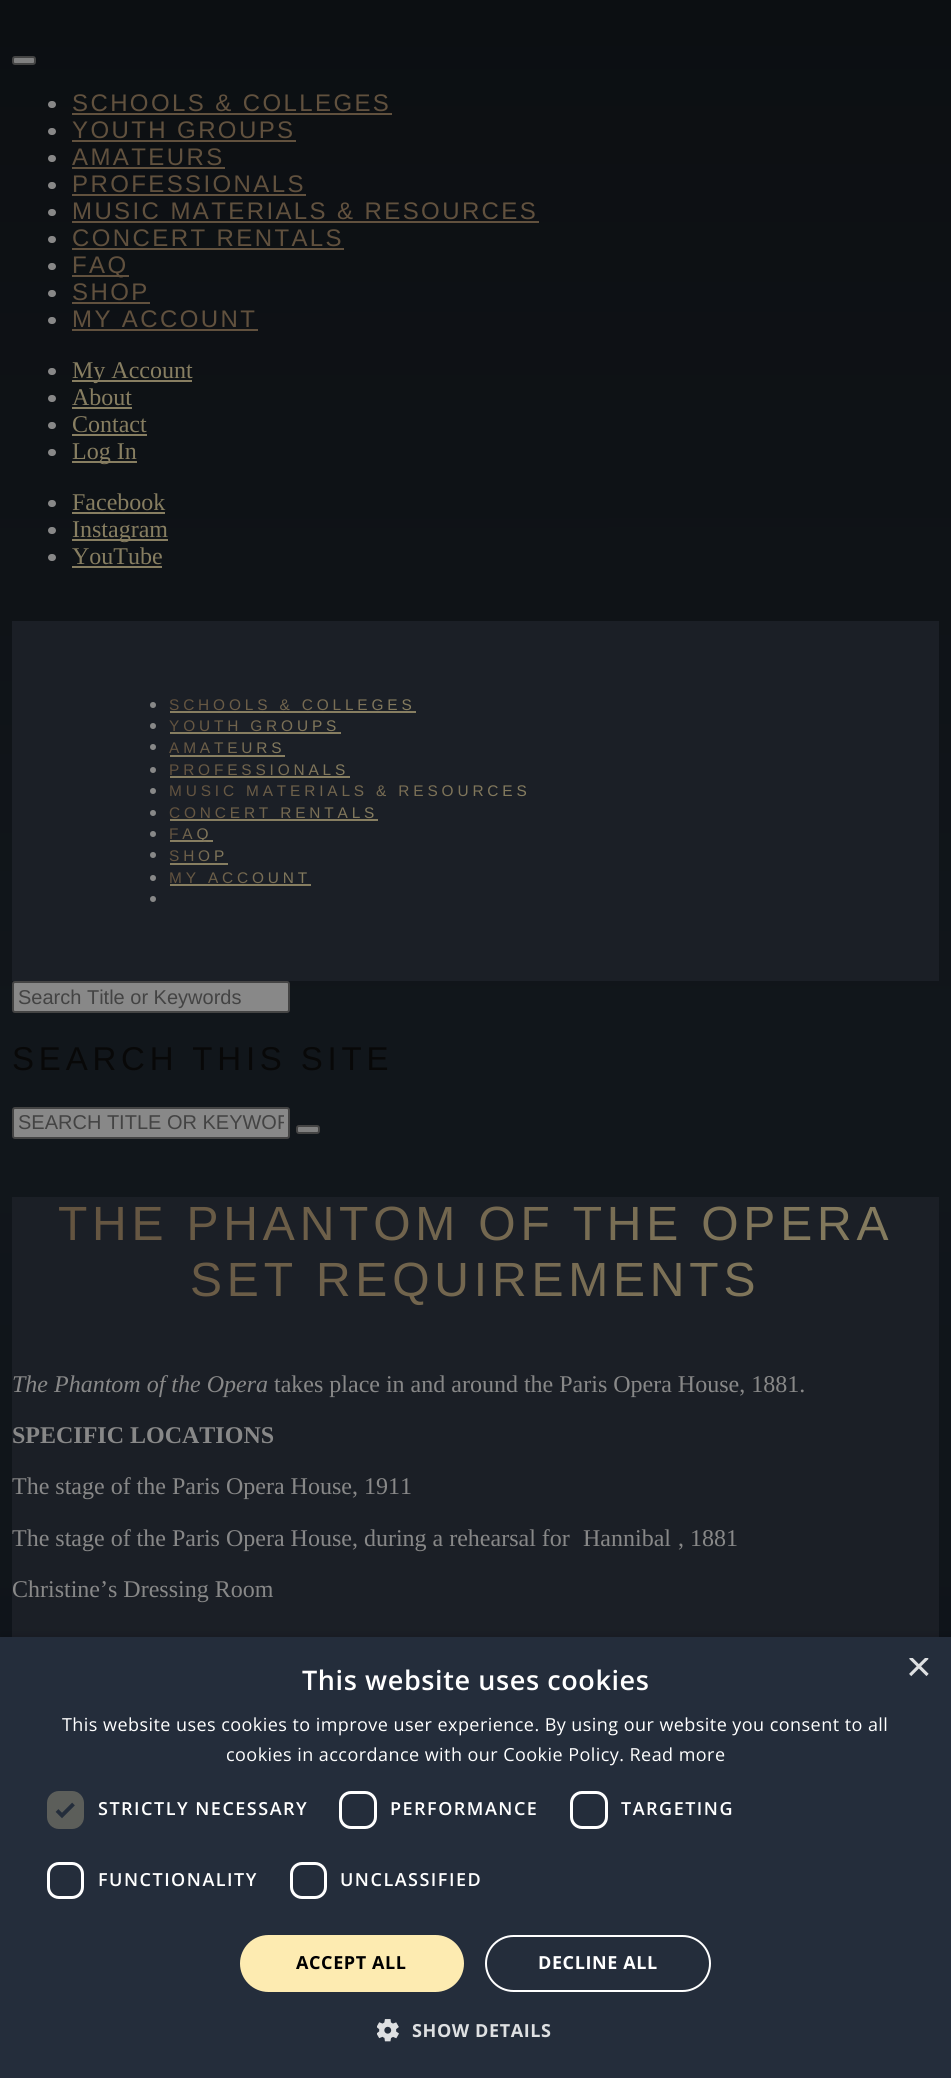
#include <cairo.h>
#include <math.h>
#include <stddef.h>


static void spaced_text(cairo_t *cr, double x, double y, const char *s, double letter, double word) {
    cairo_move_to(cr, x, y);
    while (*s) {
        char ch[5] = {0};
        int n = 0;
        do ch[n++] = *s++; while ((*s & 0xC0) == 0x80);
        cairo_show_text(cr, ch);
        cairo_rel_move_to(cr, letter + word * (*ch == ' '), 0);
    }
}

static void round_rect(cairo_t *cr, double x, double y, double w, double h, double r) {
    cairo_new_sub_path(cr);
    cairo_arc(cr, x + w - r, y + h - r, r, 0, M_PI / 2);
    cairo_arc(cr, x + r, y + h - r, r, M_PI / 2, M_PI);
    cairo_arc(cr, x + r, y + r, r, M_PI, 1.5 * M_PI);
    cairo_arc(cr, x + w - r, y + r, r, 1.5 * M_PI, 2 * M_PI);
    cairo_close_path(cr);
}

static void shadow(cairo_t *cr, double x, double y, double w, double h, double r, double blur, double alpha) {
    cairo_push_group_with_content(cr, CAIRO_CONTENT_ALPHA);
    cairo_set_operator(cr, CAIRO_OPERATOR_SOURCE);
    for (int i = 15; i >= -15 && fmin(w, h) + blur * i / 3 > 0; i -= 2) {
        double e = blur * i / 6;
        cairo_set_source_rgba(cr, 0, 0, 0, alpha * erfc((i - 1) / 8.5) / 2);
        round_rect(cr, x - e, y - e, w + 2 * e, h + 2 * e, fmax(0, fmin(r + e + blur * .6, fmin(w, h) / 2 + e)));
        cairo_fill(cr);
    }
    cairo_pattern_t *soft = cairo_pop_group(cr);
    cairo_mask(cr, soft);
    cairo_pattern_destroy(soft);
}

static void picture(cairo_t *cr, const char *path, double x, double y, double w, double h) {
    cairo_surface_t *image = cairo_image_surface_create_from_png(path);
    cairo_save(cr);
    cairo_set_source_surface(cr, image, x, y);
    cairo_rectangle(cr, x, y, w, h);
    cairo_fill(cr);
    cairo_restore(cr);
    cairo_surface_destroy(image);
}

int main(void) {
    cairo_surface_t *surface = cairo_image_surface_create(CAIRO_FORMAT_RGB24, 951, 2078);
    cairo_t *cr = cairo_create(surface);
    cairo_font_options_t *options = cairo_font_options_create();
    cairo_font_options_set_hint_metrics(options, CAIRO_HINT_METRICS_OFF);
    cairo_font_options_set_hint_style(options, CAIRO_HINT_STYLE_NONE);
    cairo_set_font_options(cr, options);
    cairo_set_miter_limit(cr, 4);
    cairo_pattern_t *gradient;
    cairo_set_source_rgb(cr, 1, 1, 1);
    cairo_paint(cr);
    gradient = cairo_pattern_create_linear(475, 0, 476, 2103);
    cairo_pattern_add_color_stop_rgba(gradient, 0, 0.047, 0.059, 0.071, 1);
    cairo_pattern_add_color_stop_rgba(gradient, 0.5, 0.067, 0.086, 0.106, 1);
    cairo_pattern_add_color_stop_rgba(gradient, 1, 0.055, 0.075, 0.098, 1);
    cairo_set_source(cr, gradient);
    cairo_pattern_destroy(gradient);
    cairo_rectangle(cr, 0, 0, 951, 1637);
    cairo_fill(cr);
    cairo_set_source_rgb(cr, 0.502, 0.502, 0.502);
    round_rect(cr, 13, 57, 22, 7, 2);
    cairo_fill_preserve(cr);
    cairo_set_source_rgb(cr, 0.267, 0.267, 0.267);
    cairo_stroke(cr);
    cairo_set_source_rgb(cr, 0.533, 0.533, 0.533);
    round_rect(cr, 48, 101, 8, 7, 3.5);
    cairo_fill(cr);
    cairo_select_font_face(cr, "Liberation Sans", CAIRO_FONT_SLANT_NORMAL, CAIRO_FONT_WEIGHT_NORMAL);
    cairo_set_font_size(cr, 24);
    cairo_set_source_rgb(cr, 0.38, 0.318, 0.243);
    spaced_text(cr, 72, 111, "SCHOOLS & COLLEGES", 2.4, 0);
    cairo_rectangle(cr, 72, 113, 320, 2);
    cairo_fill(cr);
    cairo_set_source_rgb(cr, 0.533, 0.533, 0.533);
    round_rect(cr, 48, 128, 8, 7, 3.5);
    cairo_fill(cr);
    cairo_set_source_rgb(cr, 0.38, 0.318, 0.243);
    spaced_text(cr, 72, 138, "YOUTH GROUPS", 2.4, 0);
    cairo_rectangle(cr, 72, 140, 224, 2);
    cairo_fill(cr);
    cairo_set_source_rgb(cr, 0.533, 0.533, 0.533);
    round_rect(cr, 48, 155, 8, 7, 3.5);
    cairo_fill(cr);
    cairo_set_source_rgb(cr, 0.38, 0.318, 0.243);
    spaced_text(cr, 72, 165, "AMATEURS", 2.4, 0);
    cairo_rectangle(cr, 72, 167, 153, 2);
    cairo_fill(cr);
    cairo_set_source_rgb(cr, 0.533, 0.533, 0.533);
    round_rect(cr, 48, 182, 8, 7, 3.5);
    cairo_fill(cr);
    cairo_set_source_rgb(cr, 0.38, 0.318, 0.243);
    spaced_text(cr, 72, 192, "PROFESSIONALS", 2.4, 0);
    cairo_rectangle(cr, 72, 194, 234, 2);
    cairo_fill(cr);
    cairo_set_source_rgb(cr, 0.533, 0.533, 0.533);
    round_rect(cr, 48, 209, 8, 7, 3.5);
    cairo_fill(cr);
    cairo_set_source_rgb(cr, 0.38, 0.318, 0.243);
    spaced_text(cr, 72, 219, "MUSIC MATERIALS & RESOURCES", 2.4, 0);
    cairo_rectangle(cr, 72, 221, 467, 2);
    cairo_fill(cr);
    cairo_set_source_rgb(cr, 0.533, 0.533, 0.533);
    round_rect(cr, 48, 236, 8, 7, 3.5);
    cairo_fill(cr);
    cairo_set_source_rgb(cr, 0.38, 0.318, 0.243);
    spaced_text(cr, 72, 246, "CONCERT RENTALS", 2.4, 0);
    cairo_rectangle(cr, 72, 248, 272, 2);
    cairo_fill(cr);
    cairo_set_source_rgb(cr, 0.533, 0.533, 0.533);
    round_rect(cr, 48, 263, 8, 7, 3.5);
    cairo_fill(cr);
    cairo_set_source_rgb(cr, 0.38, 0.318, 0.243);
    cairo_rectangle(cr, 72, 275, 57, 2);
    cairo_fill(cr);
    spaced_text(cr, 72, 273, "FAQ", 2.4, 0);
    cairo_set_source_rgb(cr, 0.533, 0.533, 0.533);
    round_rect(cr, 48, 290, 8, 7, 3.5);
    cairo_fill(cr);
    cairo_set_source_rgb(cr, 0.38, 0.318, 0.243);
    spaced_text(cr, 72, 300, "SHOP", 2.4, 0);
    cairo_rectangle(cr, 72, 302, 78, 2);
    cairo_fill(cr);
    cairo_set_source_rgb(cr, 0.533, 0.533, 0.533);
    round_rect(cr, 48, 317, 8, 7, 3.5);
    cairo_fill(cr);
    cairo_set_source_rgb(cr, 0.38, 0.318, 0.243);
    spaced_text(cr, 72, 327, "MY ACCOUNT", 2.4, 0);
    cairo_rectangle(cr, 72, 329, 186, 2);
    cairo_fill(cr);
    cairo_set_source_rgb(cr, 0.533, 0.533, 0.533);
    round_rect(cr, 48, 368, 8, 7, 3.5);
    cairo_fill(cr);
    cairo_set_source_rgb(cr, 0.529, 0.494, 0.38);
    cairo_rectangle(cr, 72, 380, 120, 2);
    cairo_fill(cr);
    cairo_select_font_face(cr, "Liberation Serif", CAIRO_FONT_SLANT_NORMAL, CAIRO_FONT_WEIGHT_NORMAL);
    cairo_move_to(cr, 72, 378);
    cairo_show_text(cr, "My Account");
    cairo_set_source_rgb(cr, 0.533, 0.533, 0.533);
    round_rect(cr, 48, 395, 8, 7, 3.5);
    cairo_fill(cr);
    cairo_set_source_rgb(cr, 0.529, 0.494, 0.38);
    cairo_move_to(cr, 72, 405);
    cairo_show_text(cr, "About");
    cairo_rectangle(cr, 72, 407, 60, 2);
    cairo_fill(cr);
    cairo_set_source_rgb(cr, 0.533, 0.533, 0.533);
    round_rect(cr, 48, 422, 8, 7, 3.5);
    cairo_fill(cr);
    cairo_set_source_rgb(cr, 0.529, 0.494, 0.38);
    cairo_move_to(cr, 72, 432);
    cairo_show_text(cr, "Contact");
    cairo_rectangle(cr, 72, 434, 75, 2);
    cairo_fill(cr);
    cairo_set_source_rgb(cr, 0.533, 0.533, 0.533);
    round_rect(cr, 48, 449, 8, 7, 3.5);
    cairo_fill(cr);
    cairo_set_source_rgb(cr, 0.529, 0.494, 0.38);
    cairo_rectangle(cr, 72, 461, 65, 2);
    cairo_fill(cr);
    cairo_move_to(cr, 72, 459);
    cairo_show_text(cr, "Log In");
    cairo_set_source_rgb(cr, 0.533, 0.533, 0.533);
    round_rect(cr, 48, 500, 8, 7, 3.5);
    cairo_fill(cr);
    cairo_set_source_rgb(cr, 0.529, 0.494, 0.38);
    cairo_move_to(cr, 72, 510);
    cairo_show_text(cr, "Facebook");
    cairo_rectangle(cr, 72, 512, 93, 2);
    cairo_fill(cr);
    cairo_set_source_rgb(cr, 0.533, 0.533, 0.533);
    round_rect(cr, 48, 527, 8, 7, 3.5);
    cairo_fill(cr);
    cairo_set_source_rgb(cr, 0.529, 0.494, 0.38);
    cairo_rectangle(cr, 72, 539, 96, 2);
    cairo_fill(cr);
    cairo_move_to(cr, 72, 537);
    cairo_show_text(cr, "Instagram");
    cairo_set_source_rgb(cr, 0.533, 0.533, 0.533);
    round_rect(cr, 48, 554, 8, 7, 3.5);
    cairo_fill(cr);
    cairo_set_source_rgb(cr, 0.529, 0.494, 0.38);
    cairo_move_to(cr, 72, 564);
    cairo_show_text(cr, "YouTube");
    cairo_rectangle(cr, 72, 566, 90, 2);
    cairo_fill(cr);
    cairo_set_source_rgb(cr, 0.106, 0.122, 0.149);
    cairo_rectangle(cr, 12, 621, 927, 360);
    cairo_fill(cr);
    cairo_set_source_rgb(cr, 0.533, 0.533, 0.533);
    cairo_arc(cr, 153, 705, 3, 0, 2 * M_PI);
    cairo_fill(cr);
    cairo_select_font_face(cr, "Liberation Sans", CAIRO_FONT_SLANT_NORMAL, CAIRO_FONT_WEIGHT_NORMAL);
    cairo_set_font_size(cr, 15.4);
    gradient = cairo_pattern_create_linear(172, 683, 413, 726);
    cairo_pattern_add_color_stop_rgba(gradient, 0, 0.38, 0.318, 0.243, 1);
    cairo_pattern_add_color_stop_rgba(gradient, 1, 0.529, 0.494, 0.38, 1);
    cairo_set_source(cr, gradient);
    cairo_pattern_destroy(gradient);
    spaced_text(cr, 169, 710, "SCHOOLS & COLLEGES", 3.85, 0);
    cairo_set_source_rgb(cr, 0.529, 0.494, 0.38);
    cairo_rectangle(cr, 170, 711, 246, 2);
    cairo_fill(cr);
    cairo_set_source_rgb(cr, 0.533, 0.533, 0.533);
    cairo_arc(cr, 153, 726, 3, 0, 2 * M_PI);
    cairo_fill(cr);
    gradient = cairo_pattern_create_linear(171, 711, 339, 741);
    cairo_pattern_add_color_stop_rgba(gradient, 0, 0.38, 0.318, 0.243, 1);
    cairo_pattern_add_color_stop_rgba(gradient, 1, 0.529, 0.494, 0.38, 1);
    cairo_set_source(cr, gradient);
    cairo_pattern_destroy(gradient);
    spaced_text(cr, 169, 731, "YOUTH GROUPS", 3.85, 0);
    cairo_set_source_rgb(cr, 0.529, 0.494, 0.38);
    cairo_rectangle(cr, 170, 732, 171, 2);
    cairo_fill(cr);
    cairo_set_source_rgb(cr, 0.533, 0.533, 0.533);
    cairo_arc(cr, 153, 747, 3, 0, 2 * M_PI);
    cairo_fill(cr);
    gradient = cairo_pattern_create_linear(170, 737, 285, 758);
    cairo_pattern_add_color_stop_rgba(gradient, 0, 0.38, 0.318, 0.243, 1);
    cairo_pattern_add_color_stop_rgba(gradient, 1, 0.529, 0.494, 0.38, 1);
    cairo_set_source(cr, gradient);
    cairo_pattern_destroy(gradient);
    spaced_text(cr, 169, 753, "AMATEURS", 3.85, 0);
    cairo_set_source_rgb(cr, 0.529, 0.494, 0.38);
    cairo_rectangle(cr, 170, 755, 115, 2);
    cairo_fill(cr);
    cairo_set_source_rgb(cr, 0.533, 0.533, 0.533);
    cairo_arc(cr, 153, 770, 3, 0, 2 * M_PI);
    cairo_fill(cr);
    gradient = cairo_pattern_create_linear(171, 754, 348, 785);
    cairo_pattern_add_color_stop_rgba(gradient, 0, 0.38, 0.318, 0.243, 1);
    cairo_pattern_add_color_stop_rgba(gradient, 1, 0.529, 0.494, 0.38, 1);
    cairo_set_source(cr, gradient);
    cairo_pattern_destroy(gradient);
    spaced_text(cr, 169, 775, "PROFESSIONALS", 3.85, 0);
    cairo_set_source_rgb(cr, 0.529, 0.494, 0.38);
    cairo_rectangle(cr, 170, 776, 180, 2);
    cairo_fill(cr);
    cairo_set_source_rgb(cr, 0.533, 0.533, 0.533);
    cairo_arc(cr, 153, 791, 3, 0, 2 * M_PI);
    cairo_fill(cr);
    gradient = cairo_pattern_create_linear(173, 760, 526, 822);
    cairo_pattern_add_color_stop_rgba(gradient, 0, 0.38, 0.318, 0.243, 1);
    cairo_pattern_add_color_stop_rgba(gradient, 1, 0.529, 0.494, 0.38, 1);
    cairo_set_source(cr, gradient);
    cairo_pattern_destroy(gradient);
    spaced_text(cr, 169, 796, "MUSIC MATERIALS & RESOURCES", 3.85, 0);
    cairo_set_source_rgb(cr, 0.533, 0.533, 0.533);
    cairo_new_path(cr);
    cairo_arc(cr, 153, 813, 3, 0, 2 * M_PI);
    cairo_fill(cr);
    gradient = cairo_pattern_create_linear(171, 794, 377, 831);
    cairo_pattern_add_color_stop_rgba(gradient, 0, 0.38, 0.318, 0.243, 1);
    cairo_pattern_add_color_stop_rgba(gradient, 1, 0.529, 0.494, 0.38, 1);
    cairo_set_source(cr, gradient);
    cairo_pattern_destroy(gradient);
    spaced_text(cr, 169, 818, "CONCERT RENTALS", 3.85, 0);
    cairo_set_source_rgb(cr, 0.529, 0.494, 0.38);
    cairo_rectangle(cr, 170, 819, 208, 2);
    cairo_fill(cr);
    cairo_set_source_rgb(cr, 0.533, 0.533, 0.533);
    cairo_arc(cr, 153, 834, 3, 0, 2 * M_PI);
    cairo_fill(cr);
    cairo_set_source_rgb(cr, 0.529, 0.494, 0.38);
    cairo_rectangle(cr, 170, 840, 43, 2);
    cairo_fill(cr);
    gradient = cairo_pattern_create_linear(169, 830, 213, 838);
    cairo_pattern_add_color_stop_rgba(gradient, 0, 0.38, 0.318, 0.243, 1);
    cairo_pattern_add_color_stop_rgba(gradient, 1, 0.529, 0.494, 0.38, 1);
    cairo_set_source(cr, gradient);
    cairo_pattern_destroy(gradient);
    spaced_text(cr, 169, 839, "FAQ", 3.85, 0);
    cairo_set_source_rgb(cr, 0.533, 0.533, 0.533);
    cairo_new_path(cr);
    cairo_arc(cr, 153, 855, 3, 0, 2 * M_PI);
    cairo_fill(cr);
    gradient = cairo_pattern_create_linear(169, 850, 229, 861);
    cairo_pattern_add_color_stop_rgba(gradient, 0, 0.38, 0.318, 0.243, 1);
    cairo_pattern_add_color_stop_rgba(gradient, 1, 0.529, 0.494, 0.38, 1);
    cairo_set_source(cr, gradient);
    cairo_pattern_destroy(gradient);
    spaced_text(cr, 169, 861, "SHOP", 3.85, 0);
    cairo_set_source_rgb(cr, 0.529, 0.494, 0.38);
    cairo_rectangle(cr, 170, 863, 58, 2);
    cairo_fill(cr);
    cairo_set_source_rgb(cr, 0.533, 0.533, 0.533);
    cairo_arc(cr, 153, 878, 3, 0, 2 * M_PI);
    cairo_fill(cr);
    gradient = cairo_pattern_create_linear(170, 865, 311, 890);
    cairo_pattern_add_color_stop_rgba(gradient, 0, 0.38, 0.318, 0.243, 1);
    cairo_pattern_add_color_stop_rgba(gradient, 1, 0.529, 0.494, 0.38, 1);
    cairo_set_source(cr, gradient);
    cairo_pattern_destroy(gradient);
    spaced_text(cr, 169, 883, "MY ACCOUNT", 3.85, 0);
    cairo_set_source_rgb(cr, 0.529, 0.494, 0.38);
    cairo_rectangle(cr, 170, 884, 141, 2);
    cairo_fill(cr);
    cairo_set_source_rgb(cr, 0.533, 0.533, 0.533);
    cairo_arc(cr, 153, 899, 3, 0, 2 * M_PI);
    cairo_fill(cr);
    round_rect(cr, 13, 982, 276, 30, 2);
    cairo_fill_preserve(cr);
    cairo_set_source_rgb(cr, 0.267, 0.267, 0.267);
    cairo_stroke(cr);
    cairo_set_font_size(cr, 20);
    cairo_set_source_rgb(cr, 0.263, 0.263, 0.263);
    cairo_move_to(cr, 18, 1004);
    cairo_show_text(cr, "Search Title or Keywords");
    cairo_set_font_size(cr, 33);
    cairo_set_source_rgb(cr, 0.035, 0.035, 0.035);
    spaced_text(cr, 12, 1070, "SEARCH THIS SITE", 4.8, 0);
    cairo_set_source_rgb(cr, 0.533, 0.533, 0.533);
    round_rect(cr, 13, 1108, 276, 30, 2);
    cairo_fill_preserve(cr);
    cairo_set_source_rgb(cr, 0.267, 0.267, 0.267);
    cairo_stroke(cr);
    cairo_save(cr);
    cairo_rectangle(cr, 18, 1112, 266, 22);
    cairo_clip(cr);
    cairo_set_font_size(cr, 20);
    cairo_set_source_rgb(cr, 0.263, 0.263, 0.263);
    cairo_move_to(cr, 18, 1129);
    cairo_show_text(cr, "SEARCH TITLE OR KEYWOR");
    cairo_restore(cr);
    cairo_set_source_rgb(cr, 0.502, 0.502, 0.502);
    round_rect(cr, 297, 1126, 22, 7, 2);
    cairo_fill_preserve(cr);
    cairo_set_source_rgb(cr, 0.267, 0.267, 0.267);
    cairo_stroke(cr);
    cairo_set_source_rgb(cr, 0.106, 0.122, 0.149);
    cairo_rectangle(cr, 12, 1197, 927, 440);
    cairo_fill(cr);
    cairo_set_font_size(cr, 48);
    gradient = cairo_pattern_create_linear(16, 1171, 935, 1333);
    cairo_pattern_add_color_stop_rgba(gradient, 0, 0.38, 0.318, 0.243, 1);
    cairo_pattern_add_color_stop_rgba(gradient, 1, 0.529, 0.494, 0.38, 1);
    cairo_set_source(cr, gradient);
    cairo_pattern_destroy(gradient);
    spaced_text(cr, 58, 1240, "THE PHANTOM OF THE OPERA", 4.8, 0);
    spaced_text(cr, 190, 1296, "SET REQUIREMENTS", 4.8, 0);
    cairo_select_font_face(cr, "Liberation Serif", CAIRO_FONT_SLANT_ITALIC, CAIRO_FONT_WEIGHT_NORMAL);
    cairo_set_font_size(cr, 24);
    cairo_set_source_rgb(cr, 0.533, 0.533, 0.533);
    cairo_move_to(cr, 12, 1392);
    cairo_show_text(cr, "The Phantom of the Opera");
    cairo_select_font_face(cr, "Liberation Serif", CAIRO_FONT_SLANT_NORMAL, CAIRO_FONT_WEIGHT_NORMAL);
    cairo_move_to(cr, 274, 1392);
    cairo_show_text(cr, "takes place in and around the Paris Opera House, 1881.");
    cairo_select_font_face(cr, "Liberation Serif", CAIRO_FONT_SLANT_NORMAL, CAIRO_FONT_WEIGHT_BOLD);
    cairo_move_to(cr, 12, 1443);
    cairo_show_text(cr, "SPECIFIC LOCATIONS");
    cairo_select_font_face(cr, "Liberation Serif", CAIRO_FONT_SLANT_NORMAL, CAIRO_FONT_WEIGHT_NORMAL);
    cairo_move_to(cr, 12, 1494);
    cairo_show_text(cr, "The stage of the Paris Opera House, 1911");
    cairo_move_to(cr, 12, 1546);
    cairo_show_text(cr, "The stage of the Paris Opera House, during a rehearsal for");
    cairo_move_to(cr, 583, 1546);
    cairo_show_text(cr, "Hannibal");
    cairo_move_to(cr, 678, 1546);
    cairo_show_text(cr, ", 1881");
    cairo_move_to(cr, 12, 1597);
    cairo_show_text(cr, "Christine’s Dressing Room");
    cairo_set_source_rgb(cr, 0, 0, 0);
    shadow(cr, 2, 1640, 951, 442, 0, 6, 0.35);
    cairo_set_source_rgb(cr, 0.141, 0.176, 0.231);
    cairo_rectangle(cr, 0, 1637, 951, 441);
    cairo_fill(cr);
    cairo_select_font_face(cr, "Open Sans SemiBold", CAIRO_FONT_SLANT_NORMAL, CAIRO_FONT_WEIGHT_NORMAL);
    cairo_set_font_size(cr, 27);
    cairo_set_source_rgb(cr, 1, 1, 1);
    spaced_text(cr, 302, 1690, "This website uses cookies", 0.6, 0);
    cairo_save(cr);
    cairo_rectangle(cr, 906, 1658, 23, 22);
    cairo_clip(cr);
    cairo_select_font_face(cr, "Liberation Sans", CAIRO_FONT_SLANT_NORMAL, CAIRO_FONT_WEIGHT_NORMAL);
    cairo_set_font_size(cr, 44);
    cairo_set_source_rgb(cr, 0.871, 0.878, 0.886);
    cairo_move_to(cr, 906, 1681);
    cairo_show_text(cr, "×");
    cairo_restore(cr);
    cairo_select_font_face(cr, "Open Sans", CAIRO_FONT_SLANT_NORMAL, CAIRO_FONT_WEIGHT_NORMAL);
    cairo_set_font_size(cr, 18);
    spaced_text(cr, 62, 1731, "This website uses cookies to improve user experience. By using our website you consent to all", 0.45, 0);
    spaced_text(cr, 226, 1761, "cookies in accordance with our Cookie Policy. Read more", 0.45, 0);
    cairo_set_source_rgb(cr, 0.361, 0.369, 0.353);
    round_rect(cr, 47, 1791, 37, 38, 12);
    cairo_fill(cr);
    cairo_new_path(cr);
    cairo_move_to(cr, 57, 1810.5);
    cairo_line_to(cr, 62, 1815.5);
    cairo_line_to(cr, 73.5, 1804);
    cairo_set_source_rgb(cr, 0.141, 0.176, 0.231);
    cairo_set_line_width(cr, 3.9);
    cairo_stroke(cr);
    cairo_select_font_face(cr, "Open Sans SemiBold", CAIRO_FONT_SLANT_NORMAL, CAIRO_FONT_WEIGHT_NORMAL);
    cairo_set_source_rgb(cr, 1, 1, 1);
    spaced_text(cr, 98, 1815, "STRICTLY NECESSARY", 1.5, 0);
    round_rect(cr, 340.5, 1792.5, 35, 35, 10.5);
    cairo_set_line_width(cr, 3);
    cairo_stroke(cr);
    spaced_text(cr, 390, 1815, "PERFORMANCE", 1.5, 0);
    round_rect(cr, 571.5, 1792.5, 35, 35, 10.5);
    cairo_stroke(cr);
    spaced_text(cr, 621, 1815, "TARGETING", 1.5, 0);
    round_rect(cr, 48.5, 1863.5, 34, 34, 10.5);
    cairo_stroke(cr);
    spaced_text(cr, 98, 1886, "FUNCTIONALITY", 1.5, 0);
    round_rect(cr, 291.5, 1863.5, 34, 34, 10.5);
    cairo_stroke(cr);
    spaced_text(cr, 340, 1886, "UNCLASSIFIED", 1.5, 0);
    cairo_set_source_rgb(cr, 0.992, 0.918, 0.694);
    round_rect(cr, 240, 1935, 224, 57, 28.5);
    cairo_fill(cr);
    cairo_select_font_face(cr, "Open Sans", CAIRO_FONT_SLANT_NORMAL, CAIRO_FONT_WEIGHT_BOLD);
    cairo_set_source_rgb(cr, 0, 0, 0);
    spaced_text(cr, 296, 1969, "ACCEPT ALL", 0.6, 0);
    round_rect(cr, 486, 1936, 224, 55, 27.5);
    cairo_set_source_rgb(cr, 1, 1, 1);
    cairo_set_line_width(cr, 2);
    cairo_stroke(cr);
    spaced_text(cr, 538, 1969, "DECLINE ALL", 0.6, 0);
    picture(cr, "img1.png", 377, 2019, 22, 23);
    cairo_set_source_rgb(cr, 0.871, 0.878, 0.886);
    spaced_text(cr, 412, 2037, "SHOW DETAILS", 0.6, 0);
    cairo_surface_write_to_png(surface, "page.png");
    cairo_font_options_destroy(options);
    cairo_destroy(cr);
    cairo_surface_destroy(surface);
    return 0;
}
